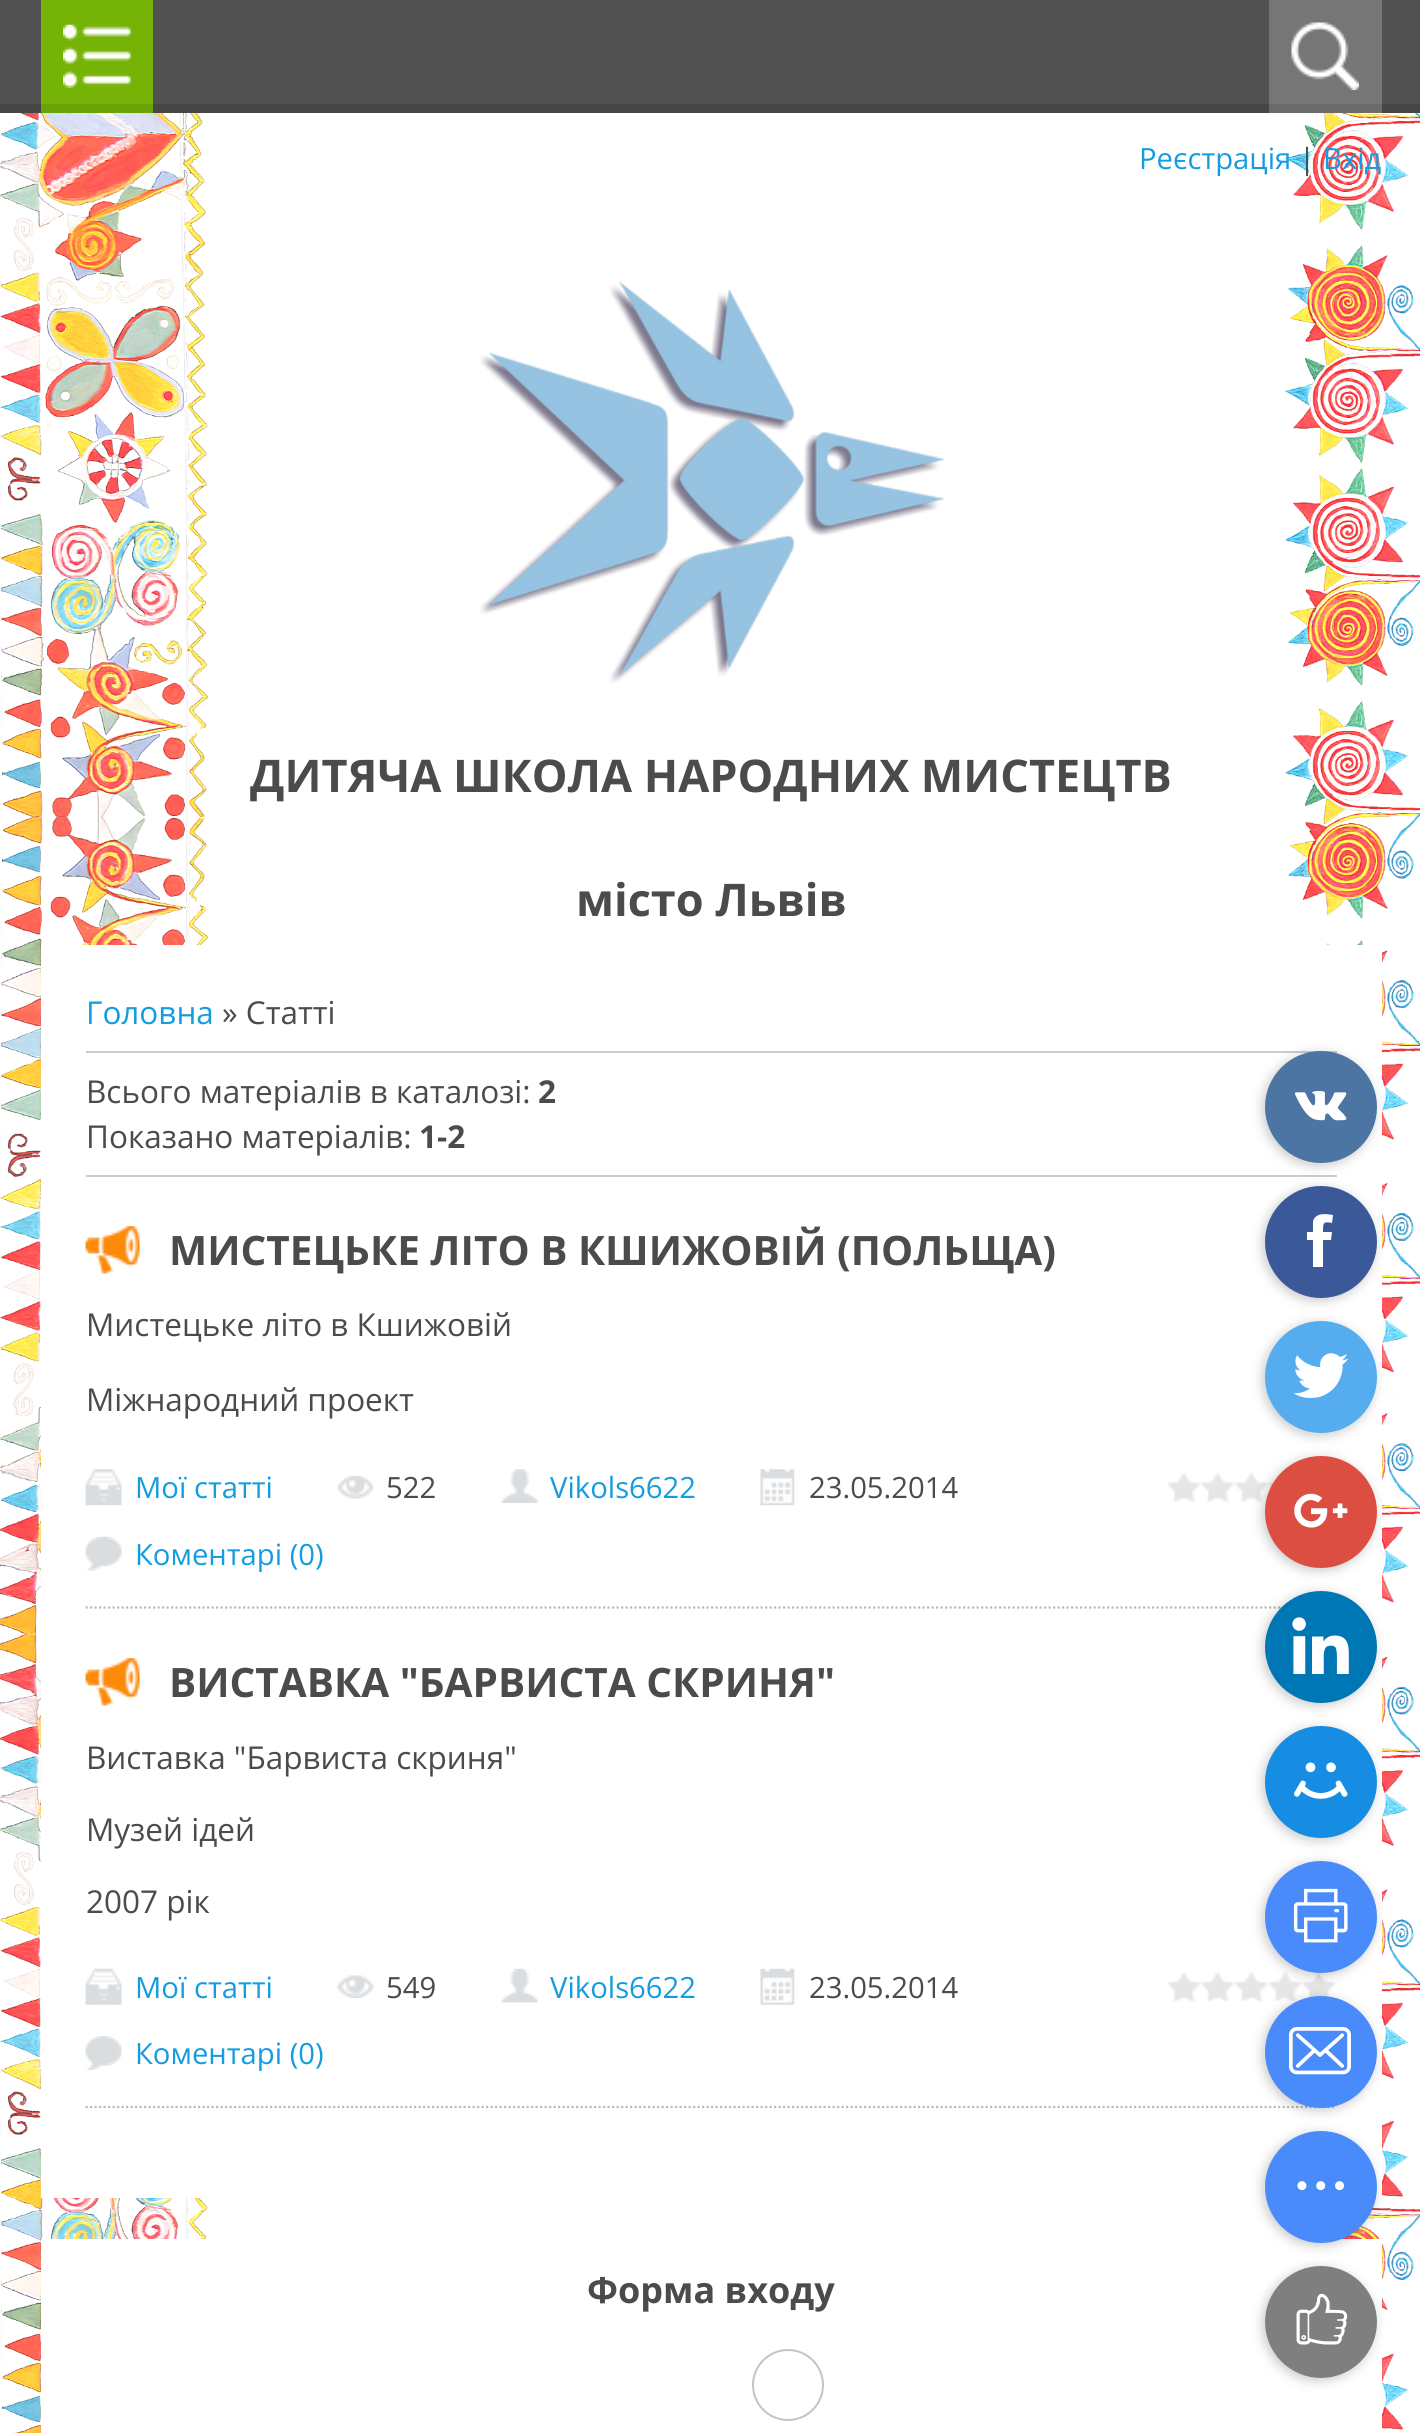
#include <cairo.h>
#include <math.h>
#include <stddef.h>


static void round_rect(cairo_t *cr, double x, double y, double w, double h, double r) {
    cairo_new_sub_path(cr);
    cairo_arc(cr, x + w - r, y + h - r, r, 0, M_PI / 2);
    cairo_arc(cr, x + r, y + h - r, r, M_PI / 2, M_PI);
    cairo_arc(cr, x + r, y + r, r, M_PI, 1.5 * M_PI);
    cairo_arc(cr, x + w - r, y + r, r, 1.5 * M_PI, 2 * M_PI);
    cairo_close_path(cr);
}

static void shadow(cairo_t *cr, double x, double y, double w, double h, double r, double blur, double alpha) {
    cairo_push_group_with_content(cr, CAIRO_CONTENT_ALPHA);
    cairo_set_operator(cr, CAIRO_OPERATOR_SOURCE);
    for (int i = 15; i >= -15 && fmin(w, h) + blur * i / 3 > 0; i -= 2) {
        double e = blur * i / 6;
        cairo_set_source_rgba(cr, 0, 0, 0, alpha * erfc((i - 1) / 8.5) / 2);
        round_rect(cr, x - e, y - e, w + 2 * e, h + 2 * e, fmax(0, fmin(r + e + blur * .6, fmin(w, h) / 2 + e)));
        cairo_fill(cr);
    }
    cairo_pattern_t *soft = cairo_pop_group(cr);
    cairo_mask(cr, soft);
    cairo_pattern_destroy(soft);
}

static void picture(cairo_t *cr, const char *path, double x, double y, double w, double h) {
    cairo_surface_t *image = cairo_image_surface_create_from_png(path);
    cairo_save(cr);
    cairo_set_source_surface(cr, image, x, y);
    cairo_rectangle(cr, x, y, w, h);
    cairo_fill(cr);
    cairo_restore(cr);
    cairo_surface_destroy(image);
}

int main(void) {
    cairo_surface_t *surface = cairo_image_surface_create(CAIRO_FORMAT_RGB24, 1420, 2433);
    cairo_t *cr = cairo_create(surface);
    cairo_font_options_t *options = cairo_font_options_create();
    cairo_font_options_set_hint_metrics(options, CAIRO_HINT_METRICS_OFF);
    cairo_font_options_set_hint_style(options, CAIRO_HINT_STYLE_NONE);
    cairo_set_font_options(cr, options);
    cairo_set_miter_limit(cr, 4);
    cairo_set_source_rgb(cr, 1, 1, 1);
    cairo_paint(cr);
    picture(cr, "img1.png", 0, 113, 1420, 2320);
    cairo_set_source_rgb(cr, 0.318, 0.318, 0.318);
    cairo_rectangle(cr, 0, 0, 1420, 104);
    cairo_fill(cr);
    cairo_set_source_rgb(cr, 0.275, 0.275, 0.275);
    cairo_rectangle(cr, 0, 104, 1420, 9);
    cairo_fill(cr);
    cairo_set_source_rgb(cr, 0.463, 0.702, 0.031);
    cairo_rectangle(cr, 41, 0, 112, 104);
    cairo_fill(cr);
    picture(cr, "img2.png", 63, 24, 68, 64);
    cairo_set_source_rgb(cr, 0.42, 0.639, 0.027);
    cairo_rectangle(cr, 41, 104, 112, 9);
    cairo_fill(cr);
    cairo_set_source_rgb(cr, 0.463, 0.463, 0.463);
    cairo_rectangle(cr, 1269, 0, 113, 104);
    cairo_fill(cr);
    picture(cr, "img3.png", 1291, 22, 68, 68);
    cairo_set_source_rgb(cr, 0.42, 0.42, 0.42);
    cairo_rectangle(cr, 1269, 104, 113, 9);
    cairo_fill(cr);
    cairo_select_font_face(cr, "Open Sans", CAIRO_FONT_SLANT_NORMAL, CAIRO_FONT_WEIGHT_NORMAL);
    cairo_set_font_size(cr, 29.25);
    cairo_set_source_rgb(cr, 0.082, 0.612, 0.878);
    cairo_move_to(cr, 1139, 169);
    cairo_show_text(cr, "Реєстрація");
    cairo_set_source_rgb(cr, 0.294, 0.294, 0.294);
    cairo_move_to(cr, 1299, 169);
    cairo_show_text(cr, "|");
    cairo_set_source_rgb(cr, 0.082, 0.612, 0.878);
    cairo_move_to(cr, 1323, 169);
    cairo_show_text(cr, "Вхід");
    picture(cr, "img4.png", 480, 281, 465, 402);
    cairo_select_font_face(cr, "Open Sans", CAIRO_FONT_SLANT_NORMAL, CAIRO_FONT_WEIGHT_BOLD);
    cairo_set_font_size(cr, 45);
    cairo_set_source_rgb(cr, 0.294, 0.294, 0.294);
    cairo_move_to(cr, 250, 792);
    cairo_show_text(cr, "ДИТЯЧА ШКОЛА НАРОДНИХ МИСТЕЦТВ");
    cairo_move_to(cr, 576, 916);
    cairo_show_text(cr, "місто Львів");
    cairo_set_source_rgb(cr, 1, 1, 1);
    cairo_rectangle(cr, 41, 945, 1341, 1253);
    cairo_fill(cr);
    cairo_select_font_face(cr, "Open Sans", CAIRO_FONT_SLANT_NORMAL, CAIRO_FONT_WEIGHT_NORMAL);
    cairo_set_font_size(cr, 31.5);
    cairo_set_source_rgb(cr, 0.082, 0.612, 0.878);
    cairo_move_to(cr, 86, 1024);
    cairo_show_text(cr, "Головна");
    cairo_set_source_rgb(cr, 0.294, 0.294, 0.294);
    cairo_move_to(cr, 222, 1024);
    cairo_show_text(cr, "» Статті");
    cairo_set_source_rgb(cr, 0.8, 0.8, 0.8);
    cairo_rectangle(cr, 86, 1051, 1251, 2);
    cairo_fill(cr);
    cairo_set_source_rgb(cr, 0.294, 0.294, 0.294);
    cairo_move_to(cr, 86, 1103);
    cairo_show_text(cr, "Всього матеріалів в каталозі:");
    cairo_select_font_face(cr, "Open Sans", CAIRO_FONT_SLANT_NORMAL, CAIRO_FONT_WEIGHT_BOLD);
    cairo_move_to(cr, 538, 1103);
    cairo_show_text(cr, "2");
    cairo_select_font_face(cr, "Open Sans", CAIRO_FONT_SLANT_NORMAL, CAIRO_FONT_WEIGHT_NORMAL);
    cairo_move_to(cr, 86, 1148);
    cairo_show_text(cr, "Показано матеріалів:");
    cairo_select_font_face(cr, "Open Sans", CAIRO_FONT_SLANT_NORMAL, CAIRO_FONT_WEIGHT_BOLD);
    cairo_move_to(cr, 419, 1148);
    cairo_show_text(cr, "1-2");
    cairo_set_source_rgb(cr, 0.8, 0.8, 0.8);
    cairo_rectangle(cr, 86, 1175, 1251, 2);
    cairo_fill(cr);
    cairo_new_path(cr);
    cairo_move_to(cr, 85.5, 1607.5);
    cairo_line_to(cr, 1336.5, 1607.5);
    cairo_set_source_rgb(cr, 0.733, 0.733, 0.733);
    cairo_set_line_width(cr, 2.2);
    cairo_set_dash(cr, (double[]){2.25, 2.25}, 2, 0);
    cairo_stroke(cr);
    picture(cr, "img5.png", 85, 1226, 55, 48);
    cairo_set_font_size(cr, 40.5);
    cairo_set_source_rgb(cr, 0.294, 0.294, 0.294);
    cairo_move_to(cr, 169, 1265);
    cairo_show_text(cr, "МИСТЕЦЬКЕ ЛІТО В КШИЖОВІЙ (ПОЛЬЩА)");
    cairo_select_font_face(cr, "Open Sans", CAIRO_FONT_SLANT_NORMAL, CAIRO_FONT_WEIGHT_NORMAL);
    cairo_set_font_size(cr, 31.5);
    cairo_move_to(cr, 86, 1336);
    cairo_show_text(cr, "Мистецьке літо в Кшижовій");
    cairo_move_to(cr, 86, 1411);
    cairo_show_text(cr, "Міжнародний проект");
    picture(cr, "img6.png", 85, 1469, 37, 37);
    cairo_set_font_size(cr, 29.25);
    cairo_set_source_rgb(cr, 0.082, 0.612, 0.878);
    cairo_move_to(cr, 135, 1498);
    cairo_show_text(cr, "Мої статті");
    picture(cr, "img7.png", 337, 1476, 37, 23);
    cairo_set_source_rgb(cr, 0.294, 0.294, 0.294);
    cairo_move_to(cr, 386, 1498);
    cairo_show_text(cr, "522");
    picture(cr, "img8.png", 501, 1469, 37, 34);
    cairo_set_source_rgb(cr, 0.082, 0.612, 0.878);
    cairo_move_to(cr, 550, 1498);
    cairo_show_text(cr, "Vikols6622");
    picture(cr, "img9.png", 760, 1469, 35, 37);
    cairo_set_source_rgb(cr, 0.294, 0.294, 0.294);
    cairo_move_to(cr, 809, 1498);
    cairo_show_text(cr, "23.05.2014");
    picture(cr, "img10.png", 1168, 1472, 107, 31);
    picture(cr, "img11.png", 85, 1536, 37, 35);
    cairo_set_source_rgb(cr, 0.082, 0.612, 0.878);
    cairo_move_to(cr, 135, 1565);
    cairo_show_text(cr, "Коментарі (0)");
    cairo_new_path(cr);
    cairo_move_to(cr, 85.5, 2107);
    cairo_line_to(cr, 1336.5, 2107);
    cairo_set_source_rgb(cr, 0.733, 0.733, 0.733);
    cairo_stroke(cr);
    picture(cr, "img12.png", 85, 1658, 55, 48);
    cairo_select_font_face(cr, "Open Sans", CAIRO_FONT_SLANT_NORMAL, CAIRO_FONT_WEIGHT_BOLD);
    cairo_set_font_size(cr, 40.5);
    cairo_set_source_rgb(cr, 0.294, 0.294, 0.294);
    cairo_move_to(cr, 169, 1697);
    cairo_show_text(cr, "ВИСТАВКА \"БАРВИСТА СКРИНЯ\"");
    cairo_select_font_face(cr, "Open Sans", CAIRO_FONT_SLANT_NORMAL, CAIRO_FONT_WEIGHT_NORMAL);
    cairo_set_font_size(cr, 31.5);
    cairo_move_to(cr, 86, 1769);
    cairo_show_text(cr, "Виставка \"Барвиста скриня\"");
    cairo_move_to(cr, 86, 1841);
    cairo_show_text(cr, "Музей ідей");
    cairo_move_to(cr, 86, 1913);
    cairo_show_text(cr, "2007 рік");
    picture(cr, "img13.png", 85, 1968, 37, 37);
    cairo_set_font_size(cr, 29.25);
    cairo_set_source_rgb(cr, 0.082, 0.612, 0.878);
    cairo_move_to(cr, 135, 1998);
    cairo_show_text(cr, "Мої статті");
    picture(cr, "img14.png", 337, 1975, 37, 23);
    cairo_set_source_rgb(cr, 0.294, 0.294, 0.294);
    cairo_move_to(cr, 386, 1998);
    cairo_show_text(cr, "549");
    picture(cr, "img15.png", 501, 1968, 37, 35);
    cairo_set_source_rgb(cr, 0.082, 0.612, 0.878);
    cairo_move_to(cr, 550, 1998);
    cairo_show_text(cr, "Vikols6622");
    picture(cr, "img16.png", 760, 1968, 35, 37);
    cairo_set_source_rgb(cr, 0.294, 0.294, 0.294);
    cairo_move_to(cr, 809, 1998);
    cairo_show_text(cr, "23.05.2014");
    picture(cr, "img17.png", 1168, 1971, 169, 31);
    picture(cr, "img18.png", 85, 2036, 37, 34);
    cairo_set_source_rgb(cr, 0.082, 0.612, 0.878);
    cairo_move_to(cr, 135, 2064);
    cairo_show_text(cr, "Коментарі (0)");
    cairo_set_source_rgb(cr, 1, 1, 1);
    cairo_rectangle(cr, 41, 2239, 1341, 194);
    cairo_fill(cr);
    cairo_select_font_face(cr, "Open Sans", CAIRO_FONT_SLANT_NORMAL, CAIRO_FONT_WEIGHT_BOLD);
    cairo_set_font_size(cr, 36);
    cairo_set_source_rgb(cr, 0.294, 0.294, 0.294);
    cairo_move_to(cr, 587, 2303);
    cairo_show_text(cr, "Форма входу");
    cairo_new_path(cr);
    cairo_arc(cr, 788, 2385, 35, 0, 2 * M_PI);
    cairo_set_source_rgb(cr, 0.769, 0.769, 0.769);
    cairo_set_line_width(cr, 2);
    cairo_set_dash(cr, NULL, 0, 0);
    cairo_stroke(cr);
    cairo_set_source_rgb(cr, 0, 0, 0);
    shadow(cr, 1262, 1053, 113, 113, 56.5, 5.5, 0.2);
    cairo_set_source_rgb(cr, 0.302, 0.459, 0.639);
    cairo_arc(cr, 1321, 1107, 56, 0, 2 * M_PI);
    cairo_fill(cr);
    picture(cr, "img19.png", 1294, 1091, 53, 30);
    cairo_set_source_rgb(cr, 0, 0, 0);
    shadow(cr, 1262, 1188, 113, 113, 56.5, 5.5, 0.2);
    cairo_set_source_rgb(cr, 0.231, 0.349, 0.596);
    cairo_arc(cr, 1321, 1242, 56, 0, 2 * M_PI);
    cairo_fill(cr);
    cairo_set_source_rgb(cr, 1, 1, 1);
    cairo_new_path(cr);
    cairo_move_to(cr, 1307, 1232);
    cairo_line_to(cr, 1313, 1232);
    cairo_line_to(cr, 1313, 1221);
    cairo_curve_to(cr, 1316, 1212, 1327, 1214, 1333, 1215);
    cairo_line_to(cr, 1332, 1223);
    cairo_curve_to(cr, 1323, 1221, 1323, 1223, 1323, 1232);
    cairo_line_to(cr, 1332, 1232);
    cairo_line_to(cr, 1331, 1240);
    cairo_line_to(cr, 1323, 1240);
    cairo_line_to(cr, 1323, 1267);
    cairo_line_to(cr, 1313, 1267);
    cairo_line_to(cr, 1313, 1240);
    cairo_line_to(cr, 1307, 1240);
    cairo_close_path(cr);
    cairo_fill(cr);
    cairo_set_source_rgb(cr, 0, 0, 0);
    shadow(cr, 1262, 1323, 113, 113, 56.5, 5.5, 0.2);
    cairo_set_source_rgb(cr, 0.333, 0.675, 0.933);
    cairo_arc(cr, 1321, 1377, 56, 0, 2 * M_PI);
    cairo_fill(cr);
    picture(cr, "img20.png", 1293, 1353, 56, 45);
    cairo_set_source_rgb(cr, 0, 0, 0);
    shadow(cr, 1262, 1458, 113, 113, 56.5, 5.5, 0.2);
    cairo_set_source_rgb(cr, 0.863, 0.306, 0.255);
    cairo_arc(cr, 1321, 1512, 56, 0, 2 * M_PI);
    cairo_fill(cr);
    picture(cr, "img21.png", 1294, 1493, 54, 35);
    cairo_set_source_rgb(cr, 0, 0, 0);
    shadow(cr, 1262, 1593, 113, 113, 56.5, 5.5, 0.2);
    cairo_set_source_rgb(cr, 0, 0.467, 0.71);
    cairo_arc(cr, 1321, 1647, 56, 0, 2 * M_PI);
    cairo_fill(cr);
    picture(cr, "img22.png", 1292, 1617, 57, 57);
    cairo_set_source_rgb(cr, 0, 0, 0);
    shadow(cr, 1262, 1728, 113, 113, 56.5, 5.5, 0.2);
    cairo_set_source_rgb(cr, 0.086, 0.553, 0.886);
    cairo_arc(cr, 1321, 1782, 56, 0, 2 * M_PI);
    cairo_fill(cr);
    picture(cr, "img23.png", 1294, 1762, 54, 37);
    cairo_set_source_rgb(cr, 0, 0, 0);
    shadow(cr, 1262, 1863, 113, 113, 56.5, 5.5, 0.2);
    cairo_set_source_rgb(cr, 0.286, 0.545, 0.98);
    cairo_arc(cr, 1321, 1917, 56, 0, 2 * M_PI);
    cairo_fill(cr);
    picture(cr, "img24.png", 1294, 1888, 54, 55);
    cairo_set_source_rgb(cr, 0, 0, 0);
    shadow(cr, 1262, 1998, 113, 113, 56.5, 5.5, 0.2);
    cairo_set_source_rgb(cr, 0.286, 0.545, 0.98);
    cairo_arc(cr, 1321, 2052, 56, 0, 2 * M_PI);
    cairo_fill(cr);
    picture(cr, "img25.png", 1289, 2027, 62, 48);
    cairo_set_source_rgb(cr, 0, 0, 0);
    shadow(cr, 1262, 2133, 113, 113, 56.5, 5.5, 0.2);
    cairo_set_source_rgb(cr, 0.286, 0.545, 0.98);
    cairo_arc(cr, 1321, 2187, 56, 0, 2 * M_PI);
    cairo_fill(cr);
    picture(cr, "img26.png", 1297, 2181, 48, 10);
    cairo_save(cr);
    cairo_set_fill_rule(cr, CAIRO_FILL_RULE_EVEN_ODD);
    cairo_new_path(cr);
    cairo_move_to(cr, 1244, 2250);
    cairo_line_to(cr, 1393, 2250);
    cairo_line_to(cr, 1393, 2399);
    cairo_line_to(cr, 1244, 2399);
    cairo_close_path(cr);
    cairo_move_to(cr, 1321, 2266);
    cairo_curve_to(cr, 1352, 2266, 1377, 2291, 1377, 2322);
    cairo_curve_to(cr, 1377, 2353, 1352, 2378, 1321, 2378);
    cairo_curve_to(cr, 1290, 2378, 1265, 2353, 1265, 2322);
    cairo_curve_to(cr, 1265, 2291, 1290, 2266, 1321, 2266);
    cairo_close_path(cr);
    cairo_clip(cr);
    cairo_set_source_rgb(cr, 0, 0, 0);
    shadow(cr, 1262, 2268, 113, 113, 56.5, 5.5, 0.2);
    cairo_restore(cr);
    cairo_set_source_rgba(cr, 0, 0, 0, 0.5);
    cairo_arc(cr, 1321, 2322, 56, 0, 2 * M_PI);
    cairo_fill(cr);
    picture(cr, "img27.png", 1296, 2293, 52, 52);
    cairo_surface_write_to_png(surface, "page.png");
    cairo_font_options_destroy(options);
    cairo_destroy(cr);
    cairo_surface_destroy(surface);
    return 0;
}
